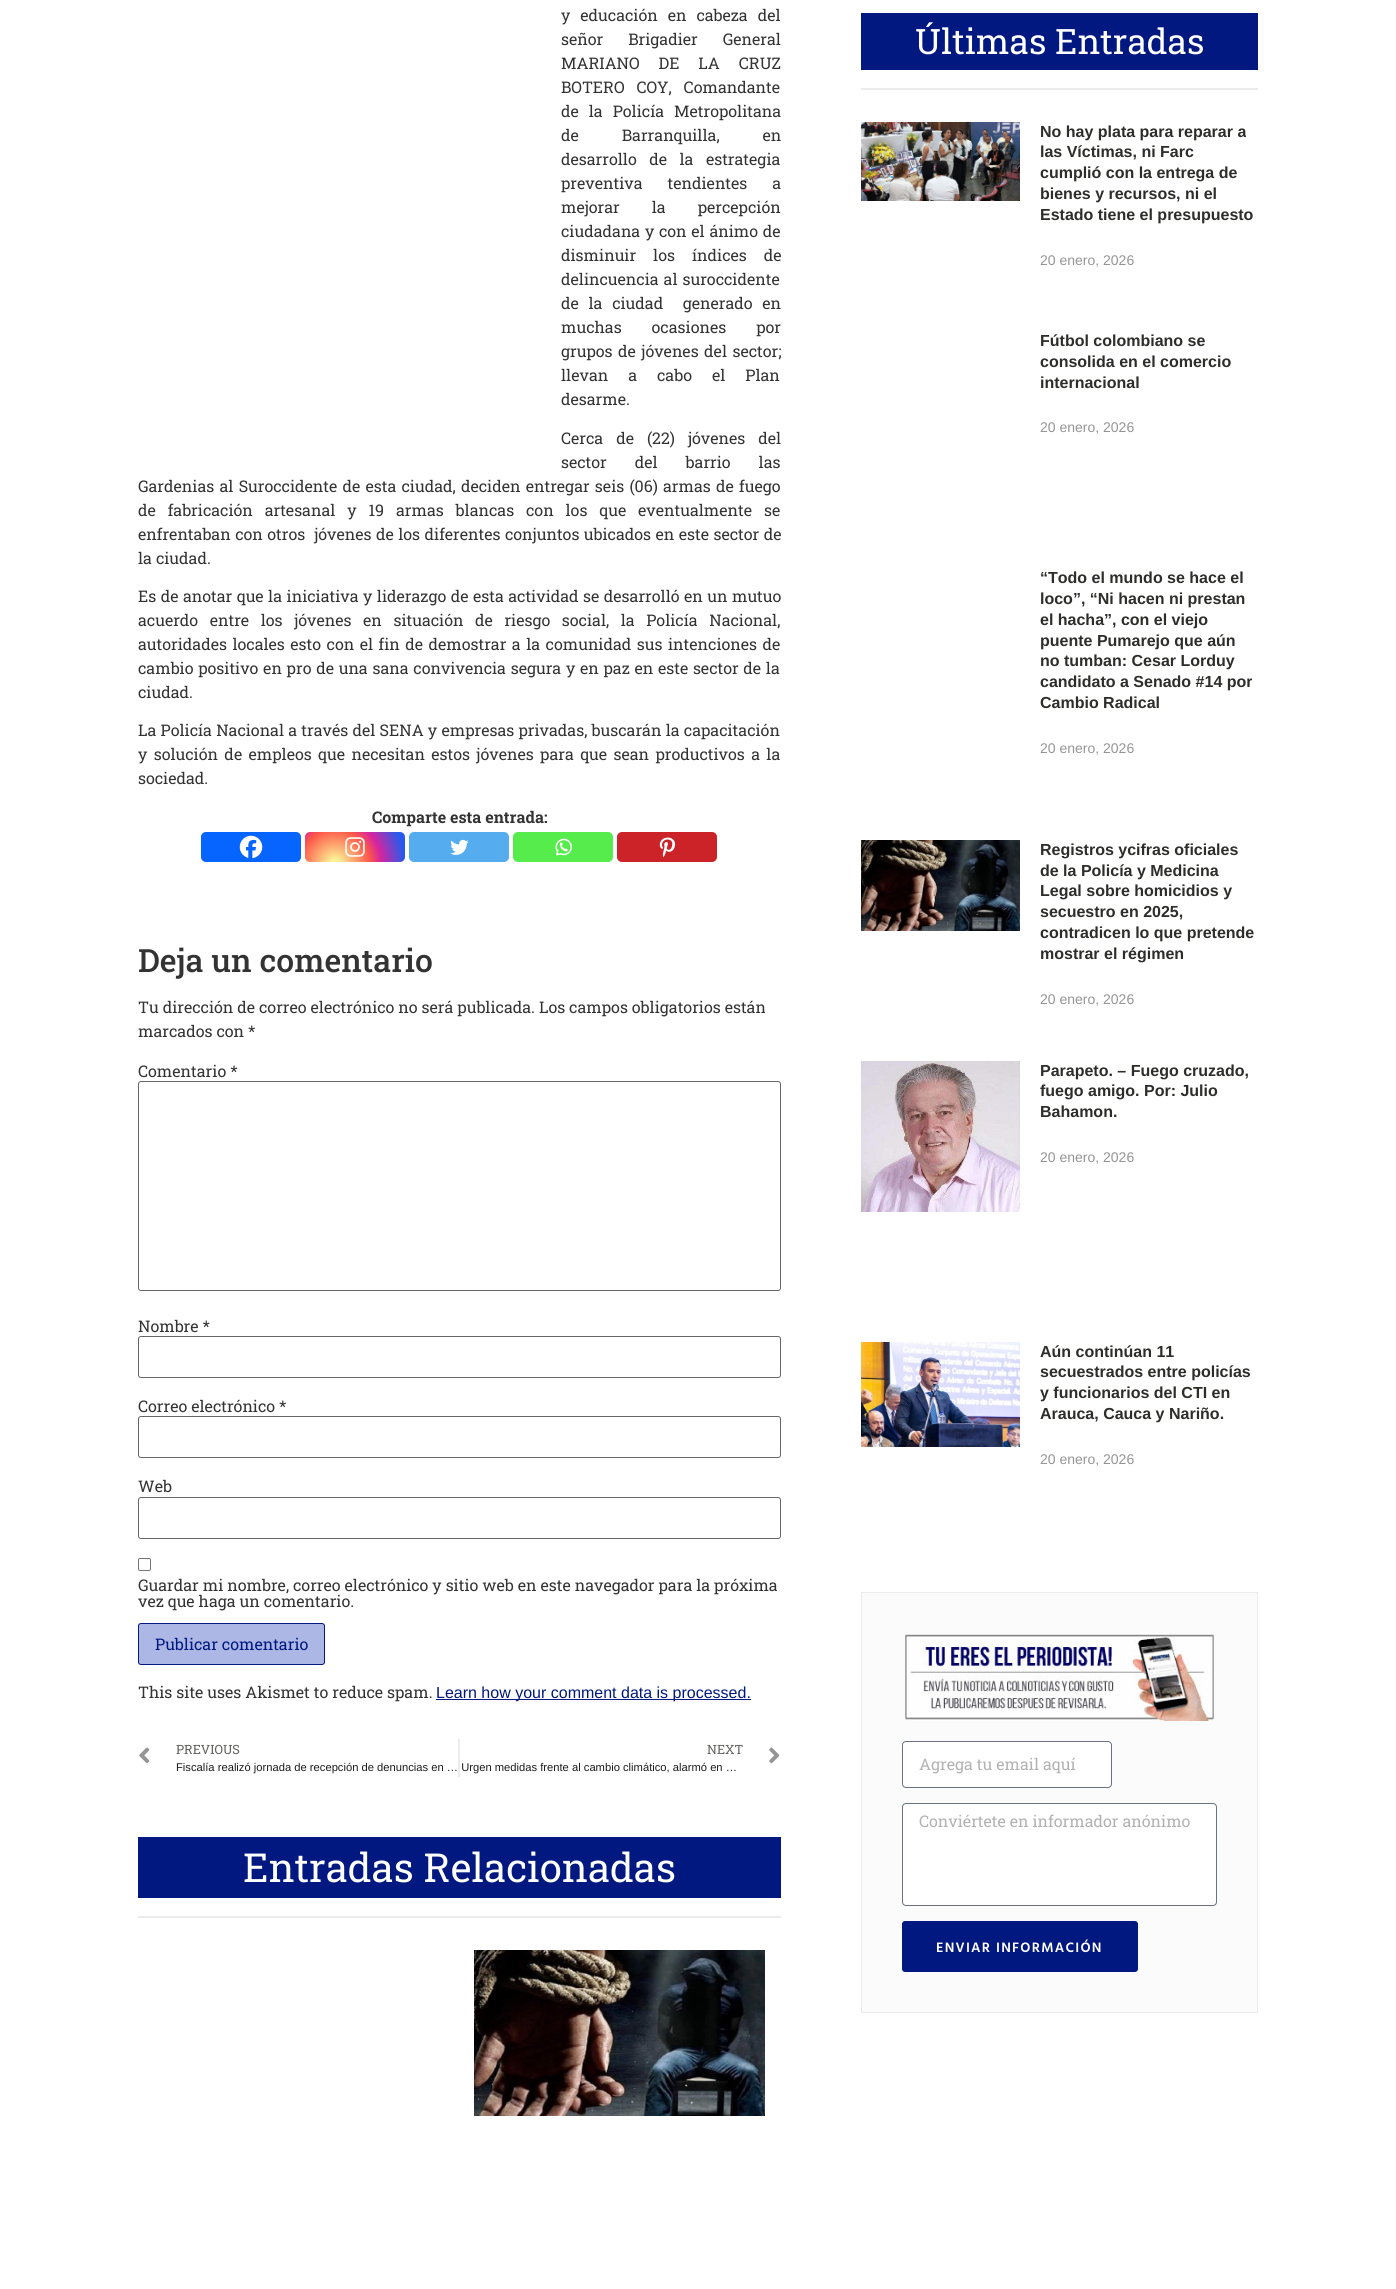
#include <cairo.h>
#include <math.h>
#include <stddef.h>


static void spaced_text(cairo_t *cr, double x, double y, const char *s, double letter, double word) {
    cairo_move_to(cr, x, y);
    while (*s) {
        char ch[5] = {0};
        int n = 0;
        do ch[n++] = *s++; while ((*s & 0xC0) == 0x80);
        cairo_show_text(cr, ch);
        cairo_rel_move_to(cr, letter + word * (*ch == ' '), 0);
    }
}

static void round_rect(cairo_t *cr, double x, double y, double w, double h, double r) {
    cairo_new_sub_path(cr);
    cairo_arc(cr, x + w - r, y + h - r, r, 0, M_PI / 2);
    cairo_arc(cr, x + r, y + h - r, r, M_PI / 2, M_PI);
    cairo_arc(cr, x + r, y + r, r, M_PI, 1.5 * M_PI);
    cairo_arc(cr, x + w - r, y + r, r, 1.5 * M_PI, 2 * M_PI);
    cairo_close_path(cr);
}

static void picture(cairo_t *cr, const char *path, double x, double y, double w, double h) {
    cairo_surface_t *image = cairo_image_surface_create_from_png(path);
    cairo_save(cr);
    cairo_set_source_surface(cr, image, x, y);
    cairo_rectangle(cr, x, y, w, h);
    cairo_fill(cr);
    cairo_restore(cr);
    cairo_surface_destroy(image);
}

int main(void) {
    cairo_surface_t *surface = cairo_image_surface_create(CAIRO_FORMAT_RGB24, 1396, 2289);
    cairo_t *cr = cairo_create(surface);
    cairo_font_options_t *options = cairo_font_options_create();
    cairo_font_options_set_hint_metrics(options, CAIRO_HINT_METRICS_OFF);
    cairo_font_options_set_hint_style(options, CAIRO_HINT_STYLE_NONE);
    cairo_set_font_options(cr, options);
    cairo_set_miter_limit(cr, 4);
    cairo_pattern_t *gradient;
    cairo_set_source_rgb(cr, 1, 1, 1);
    cairo_paint(cr);
    cairo_select_font_face(cr, "Roboto Slab", CAIRO_FONT_SLANT_NORMAL, CAIRO_FONT_WEIGHT_NORMAL);
    cairo_set_font_size(cr, 16);
    cairo_set_source_rgb(cr, 0.2, 0.2, 0.2);
    spaced_text(cr, 561, 21, "y educación en cabeza del", 0, 6);
    spaced_text(cr, 561, 45, "señor Brigadier General", 0, 21);
    spaced_text(cr, 561, 69, "MARIANO DE LA CRUZ", 0, 15);
    spaced_text(cr, 561, 93, "BOTERO COY, Comandante", 0, 8);
    spaced_text(cr, 561, 117, "de la Policía Metropolitana", 0, 6);
    spaced_text(cr, 561, 141, "de Barranquilla, en", 0, 39);
    spaced_text(cr, 561, 165, "desarrollo de la estrategia", 0, 8.5);
    spaced_text(cr, 561, 189, "preventiva tendientes a", 0, 21);
    spaced_text(cr, 561, 213, "mejorar la percepción", 0, 28);
    spaced_text(cr, 561, 237, "ciudadana y con el ánimo de", 0, 0.75);
    spaced_text(cr, 561, 261, "disminuir los índices de", 0, 13);
    spaced_text(cr, 561, 285, "delincuencia al suroccidente", 0, 1);
    spaced_text(cr, 561, 309, "de la ciudad  generado en", 0, 5.75);
    spaced_text(cr, 561, 333, "muchas ocasiones por", 0, 26);
    spaced_text(cr, 561, 357, "grupos de jóvenes del sector;", 0, 1.5);
    spaced_text(cr, 561, 381, "llevan a cabo el Plan", 0, 16);
    cairo_move_to(cr, 561, 405);
    cairo_show_text(cr, "desarme.");
    spaced_text(cr, 561, 444, "Cerca de (22) jóvenes del", 0, 9);
    spaced_text(cr, 561, 468, "sector del barrio las", 0, 24);
    spaced_text(cr, 138, 492, "Gardenias al Suroccidente de esta ciudad, deciden entregar seis (06) armas de fuego", 0, 1.25);
    spaced_text(cr, 138, 516, "de fabricación artesanal y 19 armas blancas con los que eventualmente se", 0, 7.9);
    spaced_text(cr, 138, 540, "enfrentaban con otros  jóvenes de los diferentes conjuntos ubicados en este sector de", 0, 0.5);
    cairo_move_to(cr, 138, 564);
    cairo_show_text(cr, "la ciudad.");
    spaced_text(cr, 138, 602, "Es de anotar que la iniciativa y liderazgo de esta actividad se desarrolló en un mutuo", 0, 0.5);
    spaced_text(cr, 138, 626, "acuerdo entre los jóvenes en situación de riesgo social, la Policía Nacional,", 0, 7.6);
    spaced_text(cr, 138, 650, "autoridades locales esto con el fin de demostrar a la comunidad sus intenciones de", 0, 1.5);
    spaced_text(cr, 138, 674, "cambio positivo en pro de una sana convivencia segura y en paz en este sector de la", 0, 0.75);
    cairo_move_to(cr, 138, 698);
    cairo_show_text(cr, "ciudad.");
    spaced_text(cr, 138, 736, "La Policía Nacional a través del SENA y empresas privadas, buscarán la capacitación", 0, 0.25);
    spaced_text(cr, 138, 760, "y solución de empleos que necesitan estos jóvenes para que sean productivos a la", 0, 2.4);
    cairo_move_to(cr, 138, 784);
    cairo_show_text(cr, "sociedad.");
    cairo_select_font_face(cr, "Roboto Slab", CAIRO_FONT_SLANT_NORMAL, CAIRO_FONT_WEIGHT_BOLD);
    cairo_move_to(cr, 372, 823);
    cairo_show_text(cr, "Comparte esta entrada:");
    cairo_set_source_rgb(cr, 0.027, 0.396, 0.996);
    round_rect(cr, 201, 832, 100, 30, 5);
    cairo_fill(cr);
    picture(cr, "img1.png", 239, 835, 24, 24);
    gradient = cairo_pattern_create_radial(335, 864, 0, 335, 864, 77);
    cairo_pattern_add_color_stop_rgba(gradient, 0, 0.992, 0.957, 0.592, 1);
    cairo_pattern_add_color_stop_rgba(gradient, 0.05, 0.992, 0.957, 0.592, 1);
    cairo_pattern_add_color_stop_rgba(gradient, 0.45, 0.992, 0.349, 0.286, 1);
    cairo_pattern_add_color_stop_rgba(gradient, 0.6, 0.839, 0.141, 0.624, 1);
    cairo_pattern_add_color_stop_rgba(gradient, 0.9, 0.157, 0.353, 0.922, 1);
    cairo_set_source(cr, gradient);
    cairo_pattern_destroy(gradient);
    round_rect(cr, 305, 832, 100, 30, 5);
    cairo_fill(cr);
    picture(cr, "img2.png", 345, 837, 20, 20);
    cairo_set_source_rgb(cr, 0.333, 0.675, 0.933);
    round_rect(cr, 409, 832, 100, 30, 5);
    cairo_fill(cr);
    picture(cr, "img3.png", 450, 839, 19, 16);
    cairo_set_source_rgb(cr, 0.333, 0.922, 0.298);
    round_rect(cr, 513, 832, 100, 30, 5);
    cairo_fill(cr);
    picture(cr, "img4.png", 555, 838, 17, 18);
    cairo_set_source_rgb(cr, 0.8, 0.137, 0.161);
    round_rect(cr, 617, 832, 100, 30, 5);
    cairo_fill(cr);
    picture(cr, "img5.png", 659, 837, 17, 21);
    cairo_select_font_face(cr, "Roboto Slab Medium", CAIRO_FONT_SLANT_NORMAL, CAIRO_FONT_WEIGHT_NORMAL);
    cairo_set_font_size(cr, 32);
    cairo_set_source_rgb(cr, 0.2, 0.2, 0.2);
    cairo_move_to(cr, 138, 972);
    cairo_show_text(cr, "Deja un comentario");
    cairo_select_font_face(cr, "Roboto Slab", CAIRO_FONT_SLANT_NORMAL, CAIRO_FONT_WEIGHT_NORMAL);
    cairo_set_font_size(cr, 16);
    cairo_move_to(cr, 138, 1013);
    cairo_show_text(cr, "Tu dirección de correo electrónico no será publicada. Los campos obligatorios están");
    cairo_move_to(cr, 138, 1037);
    cairo_show_text(cr, "marcados con *");
    cairo_move_to(cr, 138, 1077);
    cairo_show_text(cr, "Comentario *");
    round_rect(cr, 138.5, 1081.5, 642, 209, 2.5);
    cairo_set_source_rgb(cr, 0.4, 0.4, 0.4);
    cairo_set_line_width(cr, 1);
    cairo_stroke(cr);
    cairo_set_source_rgb(cr, 0.2, 0.2, 0.2);
    cairo_move_to(cr, 138, 1332);
    cairo_show_text(cr, "Nombre *");
    round_rect(cr, 138.5, 1336.5, 642, 41, 2.5);
    cairo_set_source_rgb(cr, 0.4, 0.4, 0.4);
    cairo_stroke(cr);
    cairo_set_source_rgb(cr, 0.2, 0.2, 0.2);
    cairo_move_to(cr, 138, 1412);
    cairo_show_text(cr, "Correo electrónico *");
    round_rect(cr, 138.5, 1416.5, 642, 41, 2.5);
    cairo_set_source_rgb(cr, 0.4, 0.4, 0.4);
    cairo_stroke(cr);
    cairo_set_source_rgb(cr, 0.2, 0.2, 0.2);
    cairo_move_to(cr, 138, 1492);
    cairo_show_text(cr, "Web");
    round_rect(cr, 138.5, 1497.5, 642, 41, 2.5);
    cairo_set_source_rgb(cr, 0.4, 0.4, 0.4);
    cairo_stroke(cr);
    round_rect(cr, 138.5, 1558.5, 12, 12, 1.5);
    cairo_set_source_rgb(cr, 0.463, 0.463, 0.463);
    cairo_stroke(cr);
    cairo_set_source_rgb(cr, 0.2, 0.2, 0.2);
    cairo_move_to(cr, 138, 1591);
    cairo_show_text(cr, "Guardar mi nombre, correo electrónico y sitio web en este navegador para la próxima");
    cairo_move_to(cr, 138, 1607);
    cairo_show_text(cr, "vez que haga un comentario.");
    cairo_set_source_rgb(cr, 0.675, 0.718, 0.898);
    round_rect(cr, 138.5, 1623.5, 186, 41, 2.5);
    cairo_fill_preserve(cr);
    cairo_set_source_rgb(cr, 0, 0.094, 0.502);
    cairo_stroke(cr);
    cairo_move_to(cr, 155, 1650);
    cairo_show_text(cr, "Publicar comentario");
    cairo_set_source_rgb(cr, 0.2, 0.2, 0.2);
    cairo_move_to(cr, 138, 1698);
    cairo_show_text(cr, "This site uses Akismet to reduce spam.");
    cairo_set_source_rgb(cr, 0, 0.094, 0.502);
    cairo_rectangle(cr, 436, 1699, 315, 1);
    cairo_fill(cr);
    cairo_select_font_face(cr, "Liberation Sans", CAIRO_FONT_SLANT_NORMAL, CAIRO_FONT_WEIGHT_NORMAL);
    cairo_move_to(cr, 436, 1698);
    cairo_show_text(cr, "Learn how your comment data is processed.");
    cairo_set_source_rgb(cr, 0.922, 0.922, 0.922);
    cairo_rectangle(cr, 458, 1739, 2, 38);
    cairo_fill(cr);
    picture(cr, "img6.png", 139, 1747, 11, 17);
    cairo_select_font_face(cr, "Roboto Slab", CAIRO_FONT_SLANT_NORMAL, CAIRO_FONT_WEIGHT_NORMAL);
    cairo_set_font_size(cr, 12.75);
    cairo_set_source_rgb(cr, 0.384, 0.384, 0.373);
    cairo_move_to(cr, 176, 1754);
    cairo_show_text(cr, "PREVIOUS");
    cairo_select_font_face(cr, "Liberation Sans", CAIRO_FONT_SLANT_NORMAL, CAIRO_FONT_WEIGHT_NORMAL);
    cairo_set_font_size(cr, 11.2);
    cairo_set_source_rgb(cr, 0.106, 0.106, 0.106);
    cairo_move_to(cr, 176, 1771);
    cairo_show_text(cr, "Fiscalía realizó jornada de recepción de denuncias en … Urgen medidas frente al cambio climático, alarmó en …");
    cairo_select_font_face(cr, "Roboto Slab", CAIRO_FONT_SLANT_NORMAL, CAIRO_FONT_WEIGHT_NORMAL);
    cairo_set_font_size(cr, 12.75);
    cairo_set_source_rgb(cr, 0.384, 0.384, 0.373);
    cairo_move_to(cr, 707, 1754);
    cairo_show_text(cr, "NEXT");
    picture(cr, "img7.png", 769, 1747, 11, 17);
    cairo_set_source_rgb(cr, 0, 0.094, 0.502);
    cairo_rectangle(cr, 138, 1837, 643, 61);
    cairo_fill(cr);
    cairo_set_font_size(cr, 40);
    cairo_set_source_rgb(cr, 1, 1, 1);
    cairo_move_to(cr, 243, 1882);
    cairo_show_text(cr, "Entradas Relacionadas");
    cairo_set_source_rgb(cr, 0.922, 0.922, 0.922);
    cairo_rectangle(cr, 138, 1916, 643, 2);
    cairo_fill(cr);
    picture(cr, "img8.png", 474, 1950, 291, 166);
    cairo_set_source_rgb(cr, 0, 0.094, 0.502);
    cairo_rectangle(cr, 861, 13, 397, 57);
    cairo_fill(cr);
    cairo_set_font_size(cr, 35);
    cairo_set_source_rgb(cr, 1, 1, 1);
    cairo_move_to(cr, 915, 54);
    cairo_show_text(cr, "Últimas Entradas");
    cairo_set_source_rgb(cr, 0.922, 0.922, 0.922);
    cairo_rectangle(cr, 861, 88, 397, 2);
    cairo_fill(cr);
    picture(cr, "img9.png", 861, 122, 159, 79);
    cairo_select_font_face(cr, "Liberation Sans", CAIRO_FONT_SLANT_NORMAL, CAIRO_FONT_WEIGHT_BOLD);
    cairo_set_font_size(cr, 16);
    cairo_set_source_rgb(cr, 0.176, 0.176, 0.165);
    cairo_move_to(cr, 1040, 137);
    cairo_show_text(cr, "No hay plata para reparar a");
    cairo_move_to(cr, 1040, 157);
    cairo_show_text(cr, "las Víctimas, ni Farc");
    cairo_move_to(cr, 1040, 178);
    cairo_show_text(cr, "cumplió con la entrega de");
    cairo_move_to(cr, 1040, 199);
    cairo_show_text(cr, "bienes y recursos, ni el");
    cairo_move_to(cr, 1040, 220);
    cairo_show_text(cr, "Estado tiene el presupuesto");
    cairo_select_font_face(cr, "Liberation Sans", CAIRO_FONT_SLANT_NORMAL, CAIRO_FONT_WEIGHT_NORMAL);
    cairo_set_font_size(cr, 14);
    cairo_set_source_rgb(cr, 0.584, 0.584, 0.584);
    cairo_move_to(cr, 1040, 265);
    cairo_show_text(cr, "20 enero, 2026");
    cairo_select_font_face(cr, "Liberation Sans", CAIRO_FONT_SLANT_NORMAL, CAIRO_FONT_WEIGHT_BOLD);
    cairo_set_font_size(cr, 16);
    cairo_set_source_rgb(cr, 0.176, 0.176, 0.165);
    cairo_move_to(cr, 1040, 346);
    cairo_show_text(cr, "Fútbol colombiano se");
    cairo_move_to(cr, 1040, 367);
    cairo_show_text(cr, "consolida en el comercio");
    cairo_move_to(cr, 1040, 388);
    cairo_show_text(cr, "internacional");
    cairo_select_font_face(cr, "Liberation Sans", CAIRO_FONT_SLANT_NORMAL, CAIRO_FONT_WEIGHT_NORMAL);
    cairo_set_font_size(cr, 14);
    cairo_set_source_rgb(cr, 0.584, 0.584, 0.584);
    cairo_move_to(cr, 1040, 432);
    cairo_show_text(cr, "20 enero, 2026");
    cairo_select_font_face(cr, "Liberation Sans", CAIRO_FONT_SLANT_NORMAL, CAIRO_FONT_WEIGHT_BOLD);
    cairo_set_font_size(cr, 16);
    cairo_set_source_rgb(cr, 0.176, 0.176, 0.165);
    cairo_move_to(cr, 1040, 583);
    cairo_show_text(cr, "“Todo el mundo se hace el");
    cairo_move_to(cr, 1040, 604);
    cairo_show_text(cr, "loco”, “Ni hacen ni prestan");
    cairo_move_to(cr, 1040, 625);
    cairo_show_text(cr, "el hacha”, con el viejo");
    cairo_move_to(cr, 1040, 646);
    cairo_show_text(cr, "puente Pumarejo que aún");
    cairo_move_to(cr, 1040, 666);
    cairo_show_text(cr, "no tumban: Cesar Lorduy");
    cairo_move_to(cr, 1040, 687);
    cairo_show_text(cr, "candidato a Senado #14 por");
    cairo_move_to(cr, 1040, 708);
    cairo_show_text(cr, "Cambio Radical");
    cairo_select_font_face(cr, "Liberation Sans", CAIRO_FONT_SLANT_NORMAL, CAIRO_FONT_WEIGHT_NORMAL);
    cairo_set_font_size(cr, 14);
    cairo_set_source_rgb(cr, 0.584, 0.584, 0.584);
    cairo_move_to(cr, 1040, 753);
    cairo_show_text(cr, "20 enero, 2026");
    picture(cr, "img10.png", 861, 840, 159, 91);
    cairo_select_font_face(cr, "Liberation Sans", CAIRO_FONT_SLANT_NORMAL, CAIRO_FONT_WEIGHT_BOLD);
    cairo_set_font_size(cr, 16);
    cairo_set_source_rgb(cr, 0.176, 0.176, 0.165);
    cairo_move_to(cr, 1040, 855);
    cairo_show_text(cr, "Registros ycifras oficiales");
    cairo_move_to(cr, 1040, 876);
    cairo_show_text(cr, "de la Policía y Medicina");
    cairo_move_to(cr, 1040, 896);
    cairo_show_text(cr, "Legal sobre homicidios y");
    cairo_move_to(cr, 1040, 917);
    cairo_show_text(cr, "secuestro en 2025,");
    cairo_move_to(cr, 1040, 938);
    cairo_show_text(cr, "contradicen lo que pretende");
    cairo_move_to(cr, 1040, 959);
    cairo_show_text(cr, "mostrar el régimen");
    cairo_select_font_face(cr, "Liberation Sans", CAIRO_FONT_SLANT_NORMAL, CAIRO_FONT_WEIGHT_NORMAL);
    cairo_set_font_size(cr, 14);
    cairo_set_source_rgb(cr, 0.584, 0.584, 0.584);
    cairo_move_to(cr, 1040, 1004);
    cairo_show_text(cr, "20 enero, 2026");
    picture(cr, "img11.png", 861, 1061, 159, 151);
    cairo_select_font_face(cr, "Liberation Sans", CAIRO_FONT_SLANT_NORMAL, CAIRO_FONT_WEIGHT_BOLD);
    cairo_set_font_size(cr, 16);
    cairo_set_source_rgb(cr, 0.176, 0.176, 0.165);
    cairo_move_to(cr, 1040, 1076);
    cairo_show_text(cr, "Parapeto. – Fuego cruzado,");
    cairo_move_to(cr, 1040, 1096);
    cairo_show_text(cr, "fuego amigo. Por: Julio");
    cairo_move_to(cr, 1040, 1117);
    cairo_show_text(cr, "Bahamon.");
    cairo_select_font_face(cr, "Liberation Sans", CAIRO_FONT_SLANT_NORMAL, CAIRO_FONT_WEIGHT_NORMAL);
    cairo_set_font_size(cr, 14);
    cairo_set_source_rgb(cr, 0.584, 0.584, 0.584);
    cairo_move_to(cr, 1040, 1162);
    cairo_show_text(cr, "20 enero, 2026");
    picture(cr, "img12.png", 861, 1342, 159, 105);
    cairo_select_font_face(cr, "Liberation Sans", CAIRO_FONT_SLANT_NORMAL, CAIRO_FONT_WEIGHT_BOLD);
    cairo_set_font_size(cr, 16);
    cairo_set_source_rgb(cr, 0.176, 0.176, 0.165);
    cairo_move_to(cr, 1040, 1357);
    cairo_show_text(cr, "Aún continúan 11");
    cairo_move_to(cr, 1040, 1377);
    cairo_show_text(cr, "secuestrados entre policías");
    cairo_move_to(cr, 1040, 1398);
    cairo_show_text(cr, "y funcionarios del CTI en");
    cairo_move_to(cr, 1040, 1419);
    cairo_show_text(cr, "Arauca, Cauca y Nariño.");
    cairo_select_font_face(cr, "Liberation Sans", CAIRO_FONT_SLANT_NORMAL, CAIRO_FONT_WEIGHT_NORMAL);
    cairo_set_font_size(cr, 14);
    cairo_set_source_rgb(cr, 0.584, 0.584, 0.584);
    cairo_move_to(cr, 1040, 1464);
    cairo_show_text(cr, "20 enero, 2026");
    cairo_set_source_rgb(cr, 0.984, 0.984, 0.984);
    cairo_rectangle(cr, 861.5, 1592.5, 396, 420);
    cairo_fill_preserve(cr);
    cairo_set_source_rgb(cr, 0.922, 0.922, 0.922);
    cairo_stroke(cr);
    picture(cr, "img13.png", 905, 1633, 309, 88);
    cairo_set_source_rgb(cr, 1, 1, 1);
    round_rect(cr, 902.5, 1741.5, 209, 46, 3.5);
    cairo_fill_preserve(cr);
    cairo_set_source_rgb(cr, 0.412, 0.447, 0.49);
    cairo_stroke(cr);
    cairo_select_font_face(cr, "Roboto Slab", CAIRO_FONT_SLANT_NORMAL, CAIRO_FONT_WEIGHT_NORMAL);
    cairo_set_font_size(cr, 16);
    cairo_set_source_rgb(cr, 0.698, 0.698, 0.698);
    cairo_move_to(cr, 919, 1770);
    cairo_show_text(cr, "Agrega tu email aquí");
    cairo_set_source_rgb(cr, 1, 1, 1);
    round_rect(cr, 902.5, 1803.5, 314, 102, 3.5);
    cairo_fill_preserve(cr);
    cairo_set_source_rgb(cr, 0.412, 0.447, 0.49);
    cairo_stroke(cr);
    cairo_set_source_rgb(cr, 0.698, 0.698, 0.698);
    cairo_move_to(cr, 919, 1827);
    cairo_show_text(cr, "Conviértete en informador anónimo");
    cairo_set_source_rgb(cr, 0, 0.094, 0.502);
    round_rect(cr, 902, 1921, 236, 51, 3);
    cairo_fill(cr);
    cairo_select_font_face(cr, "Hind Vadodara SemiBold", CAIRO_FONT_SLANT_NORMAL, CAIRO_FONT_WEIGHT_NORMAL);
    cairo_set_font_size(cr, 14);
    cairo_set_source_rgb(cr, 1, 1, 1);
    spaced_text(cr, 936, 1952, "ENVIAR INFORMACIÓN", 1.25, 0);
    cairo_surface_write_to_png(surface, "page.png");
    cairo_font_options_destroy(options);
    cairo_destroy(cr);
    cairo_surface_destroy(surface);
    return 0;
}
